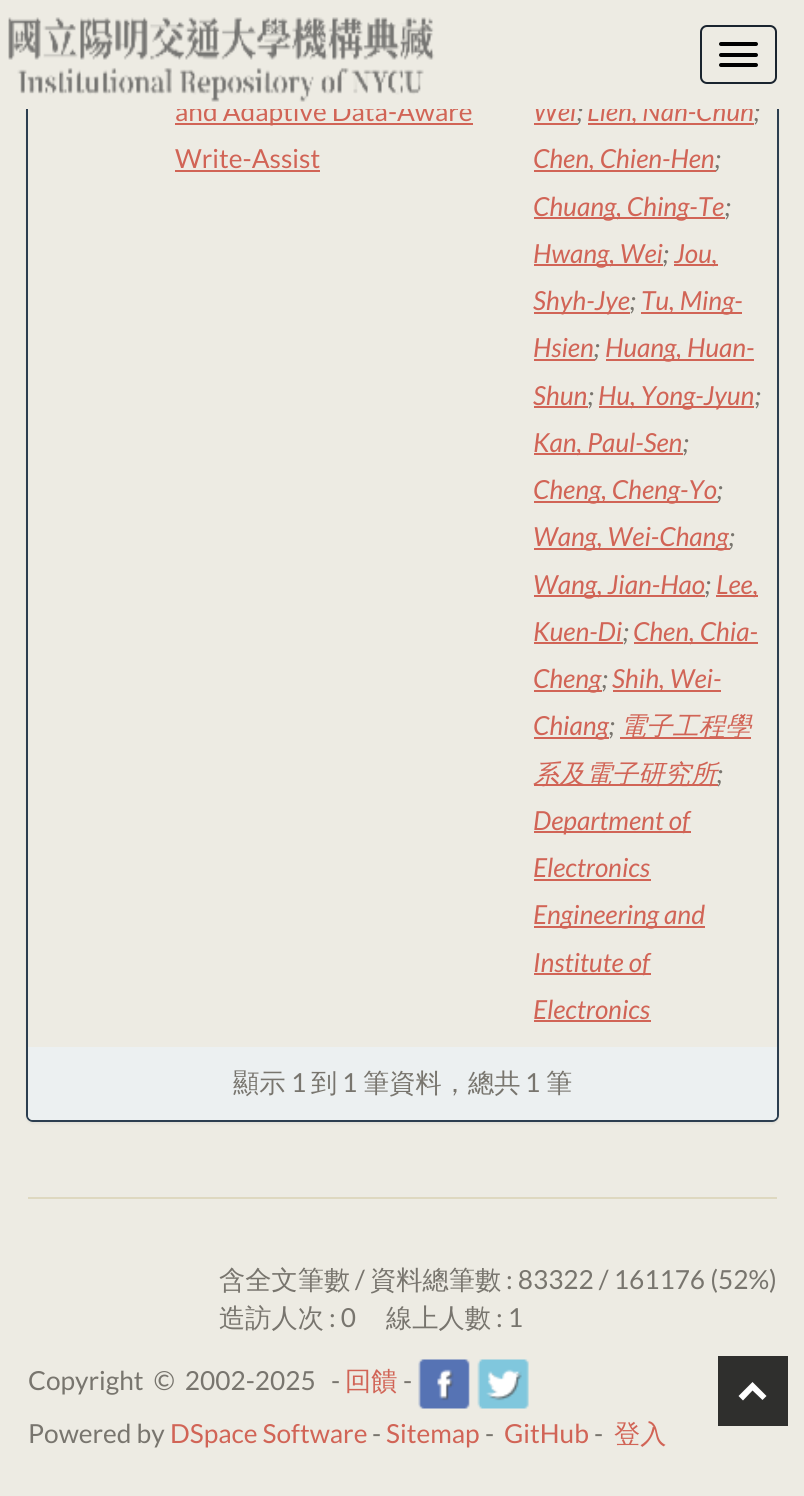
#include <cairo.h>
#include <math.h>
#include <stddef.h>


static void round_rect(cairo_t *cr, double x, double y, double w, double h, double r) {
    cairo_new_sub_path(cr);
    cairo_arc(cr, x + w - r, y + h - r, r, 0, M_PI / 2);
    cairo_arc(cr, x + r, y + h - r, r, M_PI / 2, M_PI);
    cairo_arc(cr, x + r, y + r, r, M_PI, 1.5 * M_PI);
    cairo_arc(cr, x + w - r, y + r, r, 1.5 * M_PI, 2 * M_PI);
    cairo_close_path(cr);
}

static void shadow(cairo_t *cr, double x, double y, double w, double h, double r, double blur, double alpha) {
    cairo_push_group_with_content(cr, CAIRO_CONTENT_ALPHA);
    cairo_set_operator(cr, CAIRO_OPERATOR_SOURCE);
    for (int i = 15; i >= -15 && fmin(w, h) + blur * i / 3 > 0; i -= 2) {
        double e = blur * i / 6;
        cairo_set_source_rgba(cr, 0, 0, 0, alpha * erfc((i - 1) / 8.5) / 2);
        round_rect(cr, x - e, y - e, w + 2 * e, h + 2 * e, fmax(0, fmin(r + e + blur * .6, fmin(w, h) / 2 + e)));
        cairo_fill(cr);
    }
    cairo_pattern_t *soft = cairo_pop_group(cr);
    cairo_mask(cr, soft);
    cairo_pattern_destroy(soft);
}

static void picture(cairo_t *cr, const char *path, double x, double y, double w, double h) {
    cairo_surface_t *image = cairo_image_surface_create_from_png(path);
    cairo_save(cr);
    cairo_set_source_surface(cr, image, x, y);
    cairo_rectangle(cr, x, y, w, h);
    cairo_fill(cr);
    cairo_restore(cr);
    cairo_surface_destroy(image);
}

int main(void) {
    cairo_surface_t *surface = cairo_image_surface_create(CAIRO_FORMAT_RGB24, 804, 1496);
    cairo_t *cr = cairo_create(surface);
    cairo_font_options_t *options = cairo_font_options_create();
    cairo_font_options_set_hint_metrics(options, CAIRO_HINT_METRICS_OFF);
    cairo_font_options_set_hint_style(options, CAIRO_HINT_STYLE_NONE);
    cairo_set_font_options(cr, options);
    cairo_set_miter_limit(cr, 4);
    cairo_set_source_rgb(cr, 0.929, 0.918, 0.89);
    cairo_paint(cr);
    cairo_save(cr);
    cairo_set_fill_rule(cr, CAIRO_FILL_RULE_EVEN_ODD);
    cairo_new_path(cr);
    cairo_move_to(cr, 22, 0);
    cairo_line_to(cr, 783, 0);
    cairo_line_to(cr, 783, 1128);
    cairo_line_to(cr, 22, 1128);
    cairo_close_path(cr);
    cairo_move_to(cr, 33, -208);
    cairo_line_to(cr, 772, -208);
    cairo_curve_to(cr, 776, -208, 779, -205, 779, -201);
    cairo_line_to(cr, 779, 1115);
    cairo_curve_to(cr, 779, 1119, 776, 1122, 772, 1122);
    cairo_line_to(cr, 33, 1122);
    cairo_curve_to(cr, 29, 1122, 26, 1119, 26, 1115);
    cairo_line_to(cr, 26, -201);
    cairo_curve_to(cr, 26, -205, 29, -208, 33, -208);
    cairo_close_path(cr);
    cairo_clip(cr);
    cairo_set_source_rgb(cr, 0, 0, 0);
    shadow(cr, 26, -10, 753, 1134, 7, 1, 0.05);
    cairo_restore(cr);
    round_rect(cr, 27, -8, 751, 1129, 6);
    cairo_set_source_rgb(cr, 0.173, 0.243, 0.314);
    cairo_stroke(cr);
    cairo_set_source_rgb(cr, 0.82, 0.392, 0.337);
    cairo_rectangle(cr, 175, 123, 298, 2);
    cairo_fill(cr);
    cairo_select_font_face(cr, "Lato", CAIRO_FONT_SLANT_NORMAL, CAIRO_FONT_WEIGHT_NORMAL);
    cairo_set_font_size(cr, 26.25);
    cairo_move_to(cr, 175, 121);
    cairo_show_text(cr, "and Adaptive Data-Aware");
    cairo_select_font_face(cr, "Lato", CAIRO_FONT_SLANT_ITALIC, CAIRO_FONT_WEIGHT_NORMAL);
    cairo_move_to(cr, 533, 121);
    cairo_show_text(cr, "Wei");
    cairo_rectangle(cr, 534, 123, 44, 2);
    cairo_fill(cr);
    cairo_set_source_rgb(cr, 0.471, 0.459, 0.431);
    cairo_move_to(cr, 577, 121);
    cairo_show_text(cr, ";");
    cairo_set_source_rgb(cr, 0.82, 0.392, 0.337);
    cairo_rectangle(cr, 588, 123, 166, 2);
    cairo_fill(cr);
    cairo_move_to(cr, 587, 121);
    cairo_show_text(cr, "Lien, Nan-Chun");
    cairo_set_source_rgb(cr, 0.471, 0.459, 0.431);
    cairo_move_to(cr, 754, 121);
    cairo_show_text(cr, ";");
    cairo_set_source_rgb(cr, 0.929, 0.918, 0.89);
    cairo_rectangle(cr, 25, 0, 755, 109);
    cairo_fill(cr);
    picture(cr, "img1.png", 8, 17, 427, 85);
    round_rect(cr, 701, 26, 75, 57, 6);
    cairo_set_source_rgb(cr, 0.102, 0.141, 0.184);
    cairo_stroke(cr);
    cairo_set_source_rgb(cr, 0, 0, 0);
    round_rect(cr, 719, 42, 39, 4, 2);
    cairo_fill(cr);
    round_rect(cr, 719, 53, 39, 4, 2);
    cairo_fill(cr);
    round_rect(cr, 719, 63, 39, 4, 2);
    cairo_fill(cr);
    cairo_select_font_face(cr, "Lato", CAIRO_FONT_SLANT_NORMAL, CAIRO_FONT_WEIGHT_NORMAL);
    cairo_set_source_rgb(cr, 0.82, 0.392, 0.337);
    cairo_move_to(cr, 175, 168);
    cairo_show_text(cr, "Write-Assist");
    cairo_rectangle(cr, 175, 170, 145, 2);
    cairo_fill(cr);
    cairo_rectangle(cr, 534, 170, 182, 2);
    cairo_fill(cr);
    cairo_select_font_face(cr, "Lato", CAIRO_FONT_SLANT_ITALIC, CAIRO_FONT_WEIGHT_NORMAL);
    cairo_move_to(cr, 533, 168);
    cairo_show_text(cr, "Chen, Chien-Hen");
    cairo_set_source_rgb(cr, 0.471, 0.459, 0.431);
    cairo_move_to(cr, 715, 168);
    cairo_show_text(cr, ";");
    cairo_set_source_rgb(cr, 0.82, 0.392, 0.337);
    cairo_rectangle(cr, 534, 217, 191, 2);
    cairo_fill(cr);
    cairo_move_to(cr, 533, 216);
    cairo_show_text(cr, "Chuang, Ching-Te");
    cairo_set_source_rgb(cr, 0.471, 0.459, 0.431);
    cairo_move_to(cr, 725, 216);
    cairo_show_text(cr, ";");
    cairo_set_source_rgb(cr, 0.82, 0.392, 0.337);
    cairo_rectangle(cr, 534, 264, 129, 2);
    cairo_fill(cr);
    cairo_move_to(cr, 533, 263);
    cairo_show_text(cr, "Hwang, Wei");
    cairo_set_source_rgb(cr, 0.471, 0.459, 0.431);
    cairo_move_to(cr, 663, 263);
    cairo_show_text(cr, ";");
    cairo_set_source_rgb(cr, 0.82, 0.392, 0.337);
    cairo_rectangle(cr, 674, 264, 44, 2);
    cairo_fill(cr);
    cairo_move_to(cr, 674, 263);
    cairo_show_text(cr, "Jou,");
    cairo_rectangle(cr, 534, 312, 96, 2);
    cairo_fill(cr);
    cairo_move_to(cr, 533, 310);
    cairo_show_text(cr, "Shyh-Jye");
    cairo_set_source_rgb(cr, 0.471, 0.459, 0.431);
    cairo_move_to(cr, 630, 310);
    cairo_show_text(cr, ";");
    cairo_set_source_rgb(cr, 0.82, 0.392, 0.337);
    cairo_rectangle(cr, 641, 312, 101, 2);
    cairo_fill(cr);
    cairo_move_to(cr, 641, 310);
    cairo_show_text(cr, "Tu, Ming-");
    cairo_move_to(cr, 533, 357);
    cairo_show_text(cr, "Hsien");
    cairo_rectangle(cr, 534, 359, 61, 2);
    cairo_fill(cr);
    cairo_set_source_rgb(cr, 0.471, 0.459, 0.431);
    cairo_move_to(cr, 594, 357);
    cairo_show_text(cr, ";");
    cairo_set_source_rgb(cr, 0.82, 0.392, 0.337);
    cairo_rectangle(cr, 606, 359, 148, 2);
    cairo_fill(cr);
    cairo_move_to(cr, 605, 357);
    cairo_show_text(cr, "Huang, Huan-");
    cairo_move_to(cr, 533, 405);
    cairo_show_text(cr, "Shun");
    cairo_set_source_rgb(cr, 0.471, 0.459, 0.431);
    cairo_move_to(cr, 588, 405);
    cairo_show_text(cr, ";");
    cairo_set_source_rgb(cr, 0.82, 0.392, 0.337);
    cairo_rectangle(cr, 534, 406, 54, 2);
    cairo_fill(cr);
    cairo_rectangle(cr, 599, 406, 155, 2);
    cairo_fill(cr);
    cairo_move_to(cr, 598, 405);
    cairo_show_text(cr, "Hu, Yong-Jyun");
    cairo_set_source_rgb(cr, 0.471, 0.459, 0.431);
    cairo_move_to(cr, 755, 405);
    cairo_show_text(cr, ";");
    cairo_set_source_rgb(cr, 0.82, 0.392, 0.337);
    cairo_rectangle(cr, 534, 453, 149, 2);
    cairo_fill(cr);
    cairo_move_to(cr, 533, 452);
    cairo_show_text(cr, "Kan, Paul-Sen");
    cairo_set_source_rgb(cr, 0.471, 0.459, 0.431);
    cairo_move_to(cr, 683, 452);
    cairo_show_text(cr, ";");
    cairo_set_source_rgb(cr, 0.82, 0.392, 0.337);
    cairo_rectangle(cr, 534, 501, 184, 2);
    cairo_fill(cr);
    cairo_move_to(cr, 533, 499);
    cairo_show_text(cr, "Cheng, Cheng-Yo");
    cairo_set_source_rgb(cr, 0.471, 0.459, 0.431);
    cairo_move_to(cr, 717, 499);
    cairo_show_text(cr, ";");
    cairo_set_source_rgb(cr, 0.82, 0.392, 0.337);
    cairo_rectangle(cr, 534, 548, 196, 2);
    cairo_fill(cr);
    cairo_move_to(cr, 533, 546);
    cairo_show_text(cr, "Wang, Wei-Chang");
    cairo_set_source_rgb(cr, 0.471, 0.459, 0.431);
    cairo_move_to(cr, 729, 546);
    cairo_show_text(cr, ";");
    cairo_set_source_rgb(cr, 0.82, 0.392, 0.337);
    cairo_rectangle(cr, 534, 595, 171, 2);
    cairo_fill(cr);
    cairo_move_to(cr, 533, 594);
    cairo_show_text(cr, "Wang, Jian-Hao");
    cairo_set_source_rgb(cr, 0.471, 0.459, 0.431);
    cairo_move_to(cr, 705, 594);
    cairo_show_text(cr, ";");
    cairo_set_source_rgb(cr, 0.82, 0.392, 0.337);
    cairo_rectangle(cr, 716, 595, 42, 2);
    cairo_fill(cr);
    cairo_move_to(cr, 716, 594);
    cairo_show_text(cr, "Lee,");
    cairo_move_to(cr, 533, 641);
    cairo_show_text(cr, "Kuen-Di");
    cairo_set_source_rgb(cr, 0.471, 0.459, 0.431);
    cairo_move_to(cr, 623, 641);
    cairo_show_text(cr, ";");
    cairo_set_source_rgb(cr, 0.82, 0.392, 0.337);
    cairo_rectangle(cr, 534, 642, 89, 2);
    cairo_fill(cr);
    cairo_rectangle(cr, 634, 642, 124, 2);
    cairo_fill(cr);
    cairo_move_to(cr, 633, 641);
    cairo_show_text(cr, "Chen, Chia-");
    cairo_rectangle(cr, 534, 690, 68, 2);
    cairo_fill(cr);
    cairo_move_to(cr, 533, 688);
    cairo_show_text(cr, "Cheng");
    cairo_set_source_rgb(cr, 0.471, 0.459, 0.431);
    cairo_move_to(cr, 602, 688);
    cairo_show_text(cr, ";");
    cairo_set_source_rgb(cr, 0.82, 0.392, 0.337);
    cairo_rectangle(cr, 613, 690, 108, 2);
    cairo_fill(cr);
    cairo_move_to(cr, 612, 688);
    cairo_show_text(cr, "Shih, Wei-");
    cairo_rectangle(cr, 534, 737, 75, 2);
    cairo_fill(cr);
    cairo_move_to(cr, 533, 735);
    cairo_show_text(cr, "Chiang");
    cairo_set_source_rgb(cr, 0.471, 0.459, 0.431);
    cairo_move_to(cr, 609, 735);
    cairo_show_text(cr, ";");
    cairo_set_source_rgb(cr, 0.82, 0.392, 0.337);
    cairo_rectangle(cr, 620, 737, 131, 2);
    cairo_fill(cr);
    cairo_select_font_face(cr, "WenQuanYi Zen Hei Medium", CAIRO_FONT_SLANT_ITALIC, CAIRO_FONT_WEIGHT_NORMAL);
    cairo_move_to(cr, 620, 735);
    cairo_show_text(cr, "電子工程學");
    cairo_rectangle(cr, 534, 784, 184, 2);
    cairo_fill(cr);
    cairo_move_to(cr, 533, 783);
    cairo_show_text(cr, "系及電子研究所");
    cairo_select_font_face(cr, "Lato", CAIRO_FONT_SLANT_ITALIC, CAIRO_FONT_WEIGHT_NORMAL);
    cairo_set_source_rgb(cr, 0.471, 0.459, 0.431);
    cairo_move_to(cr, 717, 783);
    cairo_show_text(cr, ";");
    cairo_set_source_rgb(cr, 0.82, 0.392, 0.337);
    cairo_rectangle(cr, 534, 831, 157, 2);
    cairo_fill(cr);
    cairo_move_to(cr, 533, 830);
    cairo_show_text(cr, "Department of");
    cairo_move_to(cr, 533, 877);
    cairo_show_text(cr, "Electronics");
    cairo_rectangle(cr, 534, 879, 117, 2);
    cairo_fill(cr);
    cairo_rectangle(cr, 534, 926, 171, 2);
    cairo_fill(cr);
    cairo_move_to(cr, 533, 924);
    cairo_show_text(cr, "Engineering and");
    cairo_rectangle(cr, 534, 973, 117, 2);
    cairo_fill(cr);
    cairo_move_to(cr, 533, 972);
    cairo_show_text(cr, "Institute of");
    cairo_move_to(cr, 533, 1019);
    cairo_show_text(cr, "Electronics");
    cairo_rectangle(cr, 534, 1020, 117, 2);
    cairo_fill(cr);
    cairo_set_source_rgb(cr, 0.925, 0.941, 0.945);
    cairo_new_path(cr);
    cairo_move_to(cr, 28, 1047);
    cairo_line_to(cr, 777, 1047);
    cairo_line_to(cr, 777, 1115);
    cairo_curve_to(cr, 777, 1118, 775, 1120, 772, 1120);
    cairo_line_to(cr, 33, 1120);
    cairo_curve_to(cr, 30, 1120, 28, 1118, 28, 1115);
    cairo_close_path(cr);
    cairo_fill(cr);
    cairo_select_font_face(cr, "WenQuanYi Zen Hei Medium", CAIRO_FONT_SLANT_NORMAL, CAIRO_FONT_WEIGHT_NORMAL);
    cairo_set_source_rgb(cr, 0.471, 0.459, 0.431);
    cairo_move_to(cr, 233, 1092);
    cairo_show_text(cr, "顯示");
    cairo_select_font_face(cr, "Lato", CAIRO_FONT_SLANT_NORMAL, CAIRO_FONT_WEIGHT_NORMAL);
    cairo_move_to(cr, 291, 1092);
    cairo_show_text(cr, "1");
    cairo_select_font_face(cr, "WenQuanYi Zen Hei Medium", CAIRO_FONT_SLANT_NORMAL, CAIRO_FONT_WEIGHT_NORMAL);
    cairo_move_to(cr, 311, 1092);
    cairo_show_text(cr, "到");
    cairo_select_font_face(cr, "Lato", CAIRO_FONT_SLANT_NORMAL, CAIRO_FONT_WEIGHT_NORMAL);
    cairo_move_to(cr, 342, 1092);
    cairo_show_text(cr, "1");
    cairo_select_font_face(cr, "WenQuanYi Zen Hei Medium", CAIRO_FONT_SLANT_NORMAL, CAIRO_FONT_WEIGHT_NORMAL);
    cairo_move_to(cr, 363, 1092);
    cairo_show_text(cr, "筆資料，總共");
    cairo_select_font_face(cr, "Lato", CAIRO_FONT_SLANT_NORMAL, CAIRO_FONT_WEIGHT_NORMAL);
    cairo_move_to(cr, 525, 1092);
    cairo_show_text(cr, "1");
    cairo_select_font_face(cr, "WenQuanYi Zen Hei Medium", CAIRO_FONT_SLANT_NORMAL, CAIRO_FONT_WEIGHT_NORMAL);
    cairo_move_to(cr, 546, 1092);
    cairo_show_text(cr, "筆");
    cairo_set_source_rgb(cr, 0.871, 0.847, 0.753);
    cairo_rectangle(cr, 28, 1197, 749, 2);
    cairo_fill(cr);
    cairo_set_source_rgb(cr, 0.471, 0.459, 0.431);
    cairo_move_to(cr, 219, 1289);
    cairo_show_text(cr, "含全文筆數");
    cairo_select_font_face(cr, "Lato", CAIRO_FONT_SLANT_NORMAL, CAIRO_FONT_WEIGHT_NORMAL);
    cairo_move_to(cr, 355, 1289);
    cairo_show_text(cr, "/");
    cairo_select_font_face(cr, "WenQuanYi Zen Hei Medium", CAIRO_FONT_SLANT_NORMAL, CAIRO_FONT_WEIGHT_NORMAL);
    cairo_move_to(cr, 370, 1289);
    cairo_show_text(cr, "資料總筆數");
    cairo_select_font_face(cr, "Lato", CAIRO_FONT_SLANT_NORMAL, CAIRO_FONT_WEIGHT_NORMAL);
    cairo_move_to(cr, 506, 1289);
    cairo_show_text(cr, ": 83322 / 161176 (52%)");
    cairo_select_font_face(cr, "WenQuanYi Zen Hei Medium", CAIRO_FONT_SLANT_NORMAL, CAIRO_FONT_WEIGHT_NORMAL);
    cairo_move_to(cr, 219, 1327);
    cairo_show_text(cr, "造訪人次");
    cairo_select_font_face(cr, "Lato", CAIRO_FONT_SLANT_NORMAL, CAIRO_FONT_WEIGHT_NORMAL);
    cairo_move_to(cr, 329, 1327);
    cairo_show_text(cr, ": 0");
    cairo_select_font_face(cr, "WenQuanYi Zen Hei Medium", CAIRO_FONT_SLANT_NORMAL, CAIRO_FONT_WEIGHT_NORMAL);
    cairo_move_to(cr, 386, 1327);
    cairo_show_text(cr, "線上人數");
    cairo_select_font_face(cr, "Lato", CAIRO_FONT_SLANT_NORMAL, CAIRO_FONT_WEIGHT_NORMAL);
    cairo_move_to(cr, 496, 1327);
    cairo_show_text(cr, ": 1");
    cairo_move_to(cr, 28, 1390);
    cairo_show_text(cr, "Copyright  ©  2002-2025   -");
    cairo_select_font_face(cr, "WenQuanYi Zen Hei Medium", CAIRO_FONT_SLANT_NORMAL, CAIRO_FONT_WEIGHT_NORMAL);
    cairo_set_source_rgb(cr, 0.82, 0.392, 0.337);
    cairo_move_to(cr, 345, 1390);
    cairo_show_text(cr, "回饋");
    cairo_select_font_face(cr, "Lato", CAIRO_FONT_SLANT_NORMAL, CAIRO_FONT_WEIGHT_NORMAL);
    cairo_set_source_rgb(cr, 0.471, 0.459, 0.431);
    cairo_move_to(cr, 403, 1390);
    cairo_show_text(cr, "-");
    picture(cr, "img2.png", 418, 1359, 52, 50);
    picture(cr, "img3.png", 477, 1359, 52, 50);
    cairo_move_to(cr, 28, 1443);
    cairo_show_text(cr, "Powered by");
    cairo_set_source_rgb(cr, 0.82, 0.392, 0.337);
    cairo_move_to(cr, 170, 1443);
    cairo_show_text(cr, "DSpace Software");
    cairo_set_source_rgb(cr, 0.471, 0.459, 0.431);
    cairo_move_to(cr, 372, 1443);
    cairo_show_text(cr, "-");
    cairo_set_source_rgb(cr, 0.82, 0.392, 0.337);
    cairo_move_to(cr, 386, 1443);
    cairo_show_text(cr, "Sitemap");
    cairo_set_source_rgb(cr, 0.471, 0.459, 0.431);
    cairo_move_to(cr, 485, 1443);
    cairo_show_text(cr, "-");
    cairo_set_source_rgb(cr, 0.82, 0.392, 0.337);
    cairo_move_to(cr, 504, 1443);
    cairo_show_text(cr, "GitHub");
    cairo_set_source_rgb(cr, 0.471, 0.459, 0.431);
    cairo_move_to(cr, 594, 1443);
    cairo_show_text(cr, "-");
    cairo_select_font_face(cr, "WenQuanYi Zen Hei Medium", CAIRO_FONT_SLANT_NORMAL, CAIRO_FONT_WEIGHT_NORMAL);
    cairo_set_source_rgb(cr, 0.82, 0.392, 0.337);
    cairo_move_to(cr, 614, 1443);
    cairo_show_text(cr, "登入");
    cairo_set_source_rgba(cr, 0, 0, 0, 0.8);
    cairo_rectangle(cr, 718, 1356, 70, 70);
    cairo_fill(cr);
    cairo_set_source_rgb(cr, 1, 1, 1);
    cairo_new_path(cr);
    cairo_move_to(cr, 752.5, 1382);
    cairo_line_to(cr, 766.5, 1396);
    cairo_line_to(cr, 762.5, 1400);
    cairo_line_to(cr, 752.5, 1390.5);
    cairo_line_to(cr, 743, 1400.5);
    cairo_line_to(cr, 738.5, 1396);
    cairo_close_path(cr);
    cairo_fill(cr);
    cairo_surface_write_to_png(surface, "page.png");
    cairo_font_options_destroy(options);
    cairo_destroy(cr);
    cairo_surface_destroy(surface);
    return 0;
}
